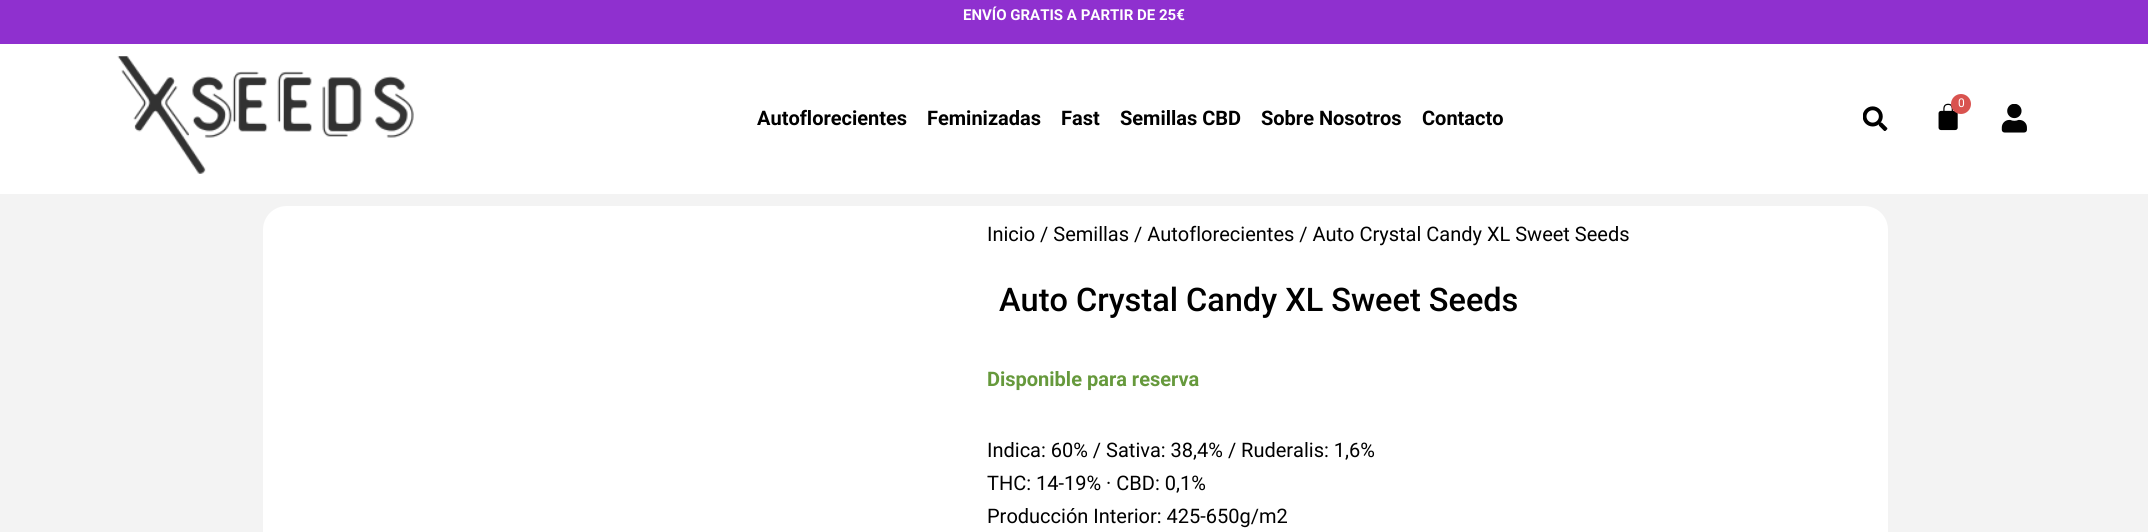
#include <cairo.h>
#include <math.h>
#include <stddef.h>


static void picture(cairo_t *cr, const char *path, double x, double y, double w, double h) {
    cairo_surface_t *image = cairo_image_surface_create_from_png(path);
    cairo_save(cr);
    cairo_set_source_surface(cr, image, x, y);
    cairo_rectangle(cr, x, y, w, h);
    cairo_fill(cr);
    cairo_restore(cr);
    cairo_surface_destroy(image);
}

int main(void) {
    cairo_surface_t *surface = cairo_image_surface_create(CAIRO_FORMAT_RGB24, 2148, 532);
    cairo_t *cr = cairo_create(surface);
    cairo_font_options_t *options = cairo_font_options_create();
    cairo_font_options_set_hint_metrics(options, CAIRO_HINT_METRICS_OFF);
    cairo_font_options_set_hint_style(options, CAIRO_HINT_STYLE_NONE);
    cairo_set_font_options(cr, options);
    cairo_set_miter_limit(cr, 4);
    cairo_set_source_rgb(cr, 0.953, 0.953, 0.953);
    cairo_paint(cr);
    cairo_set_source_rgb(cr, 0.561, 0.188, 0.812);
    cairo_rectangle(cr, 0, 0, 2148, 44);
    cairo_fill(cr);
    cairo_select_font_face(cr, "Roboto", CAIRO_FONT_SLANT_NORMAL, CAIRO_FONT_WEIGHT_BOLD);
    cairo_set_font_size(cr, 15);
    cairo_set_source_rgb(cr, 1, 1, 1);
    cairo_move_to(cr, 963, 20);
    cairo_show_text(cr, "ENVÍO GRATIS A PARTIR DE 25€");
    cairo_rectangle(cr, 0, 44, 2148, 150);
    cairo_fill(cr);
    picture(cr, "img1.png", 117, 56, 297, 118);
    picture(cr, "img2.png", 1938, 103, 20, 28);
    cairo_set_source_rgb(cr, 0.851, 0.325, 0.31);
    cairo_arc(cr, 1961, 104, 10, 0, 2 * M_PI);
    cairo_fill(cr);
    cairo_select_font_face(cr, "Roboto", CAIRO_FONT_SLANT_NORMAL, CAIRO_FONT_WEIGHT_NORMAL);
    cairo_set_font_size(cr, 12);
    cairo_set_source_rgb(cr, 1, 1, 1);
    cairo_move_to(cr, 1958, 107);
    cairo_show_text(cr, "0");
    picture(cr, "img3.png", 1863, 106, 25, 25);
    picture(cr, "img4.png", 2001, 104, 26, 29);
    cairo_select_font_face(cr, "Roboto", CAIRO_FONT_SLANT_NORMAL, CAIRO_FONT_WEIGHT_BOLD);
    cairo_set_font_size(cr, 20);
    cairo_set_source_rgb(cr, 0, 0, 0);
    cairo_move_to(cr, 757, 125);
    cairo_show_text(cr, "Autoflorecientes");
    cairo_move_to(cr, 927, 125);
    cairo_show_text(cr, "Feminizadas");
    cairo_move_to(cr, 1061, 125);
    cairo_show_text(cr, "Fast");
    cairo_move_to(cr, 1120, 125);
    cairo_show_text(cr, "Semillas CBD");
    cairo_move_to(cr, 1261, 125);
    cairo_show_text(cr, "Sobre Nosotros");
    cairo_move_to(cr, 1422, 125);
    cairo_show_text(cr, "Contacto");
    cairo_set_source_rgb(cr, 1, 1, 1);
    cairo_new_path(cr);
    cairo_move_to(cr, 287, 206);
    cairo_line_to(cr, 974, 206);
    cairo_line_to(cr, 974, 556);
    cairo_line_to(cr, 287, 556);
    cairo_curve_to(cr, 273.5, 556, 263, 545.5, 263, 532);
    cairo_line_to(cr, 263, 230);
    cairo_curve_to(cr, 263, 216.5, 273.5, 206, 287, 206);
    cairo_close_path(cr);
    cairo_fill(cr);
    cairo_new_path(cr);
    cairo_move_to(cr, 974, 206);
    cairo_line_to(cr, 1864, 206);
    cairo_curve_to(cr, 1877.5, 206, 1888, 216.5, 1888, 230);
    cairo_line_to(cr, 1888, 532);
    cairo_curve_to(cr, 1888, 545.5, 1877.5, 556, 1864, 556);
    cairo_line_to(cr, 974, 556);
    cairo_close_path(cr);
    cairo_fill(cr);
    cairo_select_font_face(cr, "Roboto", CAIRO_FONT_SLANT_NORMAL, CAIRO_FONT_WEIGHT_NORMAL);
    cairo_set_source_rgb(cr, 0, 0, 0);
    cairo_move_to(cr, 987, 241);
    cairo_show_text(cr, "Inicio / Semillas / Autoflorecientes / Auto Crystal Candy XL Sweet Seeds");
    cairo_select_font_face(cr, "Roboto Medium", CAIRO_FONT_SLANT_NORMAL, CAIRO_FONT_WEIGHT_NORMAL);
    cairo_set_font_size(cr, 32.5);
    cairo_move_to(cr, 999, 311);
    cairo_show_text(cr, "Auto Crystal Candy XL Sweet Seeds");
    cairo_select_font_face(cr, "Roboto", CAIRO_FONT_SLANT_NORMAL, CAIRO_FONT_WEIGHT_BOLD);
    cairo_set_font_size(cr, 20);
    cairo_set_source_rgb(cr, 0.4, 0.6, 0.235);
    cairo_move_to(cr, 987, 386);
    cairo_show_text(cr, "Disponible para reserva");
    cairo_select_font_face(cr, "Roboto", CAIRO_FONT_SLANT_NORMAL, CAIRO_FONT_WEIGHT_NORMAL);
    cairo_set_source_rgb(cr, 0, 0, 0);
    cairo_move_to(cr, 987, 457);
    cairo_show_text(cr, "Indica: 60% / Sativa: 38,4% / Ruderalis: 1,6%");
    cairo_move_to(cr, 987, 490);
    cairo_show_text(cr, "THC: 14-19% · CBD: 0,1%");
    cairo_move_to(cr, 987, 523);
    cairo_show_text(cr, "Producción Interior: 425-650g/m2");
    cairo_surface_write_to_png(surface, "page.png");
    cairo_font_options_destroy(options);
    cairo_destroy(cr);
    cairo_surface_destroy(surface);
    return 0;
}
